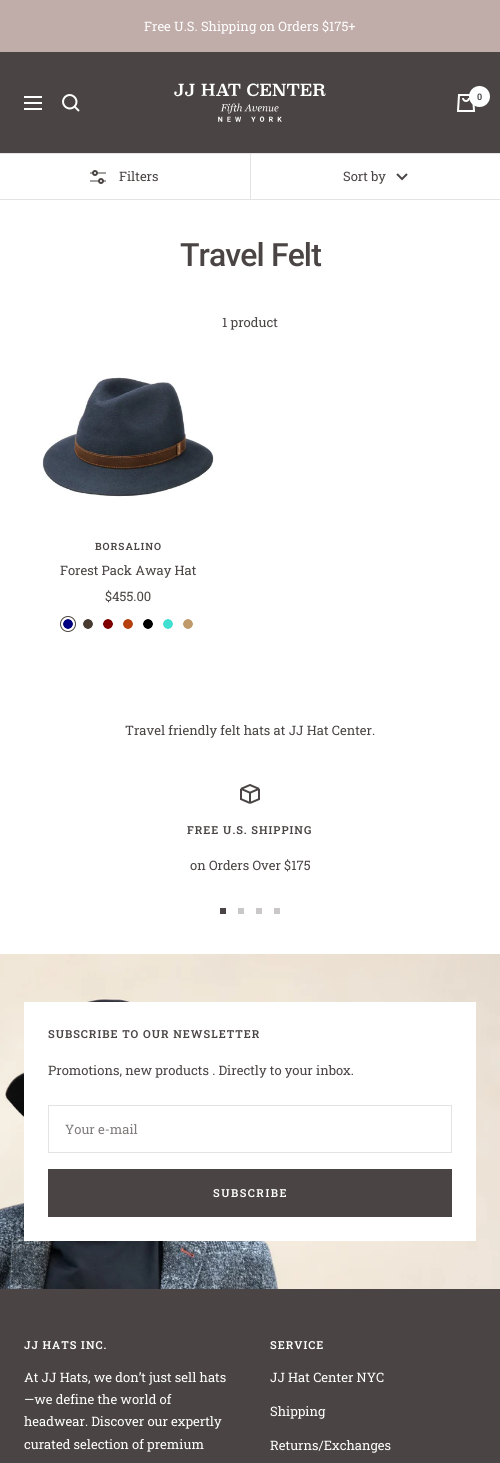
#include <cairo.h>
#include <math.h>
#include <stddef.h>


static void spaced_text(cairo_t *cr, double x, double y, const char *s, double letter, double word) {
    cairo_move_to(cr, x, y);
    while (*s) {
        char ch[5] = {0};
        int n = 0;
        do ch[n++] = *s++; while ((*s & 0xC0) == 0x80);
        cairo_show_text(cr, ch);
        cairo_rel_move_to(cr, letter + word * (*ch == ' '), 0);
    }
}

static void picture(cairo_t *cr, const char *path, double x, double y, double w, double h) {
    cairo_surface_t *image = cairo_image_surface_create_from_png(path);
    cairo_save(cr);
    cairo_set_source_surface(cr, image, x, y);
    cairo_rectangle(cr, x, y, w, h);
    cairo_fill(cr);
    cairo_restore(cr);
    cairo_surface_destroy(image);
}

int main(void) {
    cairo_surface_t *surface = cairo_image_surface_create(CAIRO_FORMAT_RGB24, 500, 1463);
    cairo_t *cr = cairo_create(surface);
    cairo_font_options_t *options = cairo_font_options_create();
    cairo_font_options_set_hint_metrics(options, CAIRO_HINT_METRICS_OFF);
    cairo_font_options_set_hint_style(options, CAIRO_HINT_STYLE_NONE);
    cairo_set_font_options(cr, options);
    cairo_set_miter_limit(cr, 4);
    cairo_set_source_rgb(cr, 1, 1, 1);
    cairo_paint(cr);
    cairo_set_source_rgb(cr, 0.753, 0.675, 0.663);
    cairo_rectangle(cr, 0, 0, 500, 52);
    cairo_fill(cr);
    cairo_select_font_face(cr, "Roboto Slab", CAIRO_FONT_SLANT_NORMAL, CAIRO_FONT_WEIGHT_NORMAL);
    cairo_set_font_size(cr, 13);
    cairo_set_source_rgb(cr, 1, 1, 1);
    cairo_move_to(cr, 144, 31);
    cairo_show_text(cr, "Free U.S. Shipping on Orders $175+");
    cairo_set_source_rgb(cr, 0.29, 0.267, 0.267);
    cairo_rectangle(cr, 0, 52, 500, 101);
    cairo_fill(cr);
    cairo_new_path(cr);
    cairo_move_to(cr, 24, 97);
    cairo_line_to(cr, 42, 97);
    cairo_move_to(cr, 24, 109);
    cairo_line_to(cr, 42, 109);
    cairo_close_path(cr);
    cairo_move_to(cr, 24, 103);
    cairo_line_to(cr, 42, 103);
    cairo_close_path(cr);
    cairo_move_to(cr, 74.5, 106.5);
    cairo_curve_to(cr, 80.5, 100, 71.5, 91, 65, 97);
    cairo_curve_to(cr, 59, 103.5, 68, 112.5, 74.5, 106.5);
    cairo_close_path(cr);
    cairo_move_to(cr, 74.5, 106.5);
    cairo_line_to(cr, 79, 111);
    cairo_set_source_rgb(cr, 1, 1, 1);
    cairo_stroke(cr);
    picture(cr, "img1.png", 174, 83, 152, 39);
    picture(cr, "img2.png", 456, 94, 20, 18);
    cairo_arc(cr, 479.5, 96.5, 10.5, 0, 2 * M_PI);
    cairo_fill(cr);
    cairo_select_font_face(cr, "Roboto Slab SemiBold", CAIRO_FONT_SLANT_NORMAL, CAIRO_FONT_WEIGHT_NORMAL);
    cairo_set_font_size(cr, 9);
    cairo_set_source_rgb(cr, 0.29, 0.267, 0.267);
    cairo_move_to(cr, 477, 100);
    cairo_show_text(cr, "0");
    cairo_set_source_rgb(cr, 0.894, 0.89, 0.89);
    cairo_rectangle(cr, 0, 153, 500, 1);
    cairo_fill(cr);
    cairo_rectangle(cr, 0, 199, 500, 1);
    cairo_fill(cr);
    picture(cr, "img3.png", 90, 170, 16, 14);
    cairo_select_font_face(cr, "Roboto Slab", CAIRO_FONT_SLANT_NORMAL, CAIRO_FONT_WEIGHT_NORMAL);
    cairo_set_font_size(cr, 13);
    cairo_set_source_rgb(cr, 0.29, 0.267, 0.267);
    cairo_move_to(cr, 119, 181);
    cairo_show_text(cr, "Filters");
    cairo_set_source_rgb(cr, 0.894, 0.89, 0.89);
    cairo_rectangle(cr, 250, 153, 1, 47);
    cairo_fill(cr);
    cairo_set_source_rgb(cr, 0.29, 0.267, 0.267);
    cairo_move_to(cr, 343, 181);
    cairo_show_text(cr, "Sort by");
    cairo_new_path(cr);
    cairo_move_to(cr, 397, 174);
    cairo_line_to(cr, 402, 179);
    cairo_line_to(cr, 407, 174);
    cairo_stroke(cr);
    cairo_select_font_face(cr, "Roboto Medium", CAIRO_FONT_SLANT_NORMAL, CAIRO_FONT_WEIGHT_NORMAL);
    cairo_set_font_size(cr, 32);
    spaced_text(cr, 180, 266, "Travel Felt", -0.9, 0);
    cairo_select_font_face(cr, "Roboto Slab", CAIRO_FONT_SLANT_NORMAL, CAIRO_FONT_WEIGHT_NORMAL);
    cairo_set_font_size(cr, 13);
    cairo_move_to(cr, 222, 327);
    cairo_show_text(cr, "1 product");
    picture(cr, "img4.png", 42, 377, 172, 120);
    cairo_select_font_face(cr, "Roboto Slab SemiBold", CAIRO_FONT_SLANT_NORMAL, CAIRO_FONT_WEIGHT_NORMAL);
    cairo_set_font_size(cr, 10);
    spaced_text(cr, 95, 550, "BORSALINO", 1, 0);
    cairo_select_font_face(cr, "Roboto Slab", CAIRO_FONT_SLANT_NORMAL, CAIRO_FONT_WEIGHT_NORMAL);
    cairo_set_font_size(cr, 13);
    cairo_move_to(cr, 60, 575);
    cairo_show_text(cr, "Forest Pack Away Hat");
    cairo_move_to(cr, 105, 601);
    cairo_show_text(cr, "$455.00");
    cairo_set_source_rgb(cr, 0, 0, 0.502);
    cairo_new_path(cr);
    cairo_arc(cr, 68, 624, 6, 0, 2 * M_PI);
    cairo_fill_preserve(cr);
    cairo_set_source_rgb(cr, 1, 1, 1);
    cairo_stroke(cr);
    cairo_arc(cr, 68, 624, 5.5, 0, 2 * M_PI);
    cairo_set_line_width(cr, 1);
    cairo_stroke(cr);
    cairo_arc(cr, 68, 624, 7.5, 0, 2 * M_PI);
    cairo_set_source_rgb(cr, 0.29, 0.267, 0.267);
    cairo_stroke(cr);
    cairo_set_source_rgb(cr, 0.282, 0.235, 0.196);
    cairo_arc(cr, 88, 624, 6, 0, 2 * M_PI);
    cairo_fill_preserve(cr);
    cairo_set_source_rgb(cr, 1, 1, 1);
    cairo_set_line_width(cr, 2);
    cairo_stroke(cr);
    cairo_arc(cr, 88, 624, 5.5, 0, 2 * M_PI);
    cairo_set_line_width(cr, 1);
    cairo_stroke(cr);
    cairo_set_source_rgb(cr, 0.502, 0, 0);
    cairo_arc(cr, 108, 624, 6, 0, 2 * M_PI);
    cairo_fill_preserve(cr);
    cairo_set_source_rgb(cr, 1, 1, 1);
    cairo_set_line_width(cr, 2);
    cairo_stroke(cr);
    cairo_arc(cr, 108, 624, 5.5, 0, 2 * M_PI);
    cairo_set_line_width(cr, 1);
    cairo_stroke(cr);
    cairo_set_source_rgb(cr, 0.718, 0.255, 0.055);
    cairo_arc(cr, 128, 624, 6, 0, 2 * M_PI);
    cairo_fill_preserve(cr);
    cairo_set_source_rgb(cr, 1, 1, 1);
    cairo_set_line_width(cr, 2);
    cairo_stroke(cr);
    cairo_arc(cr, 128, 624, 5.5, 0, 2 * M_PI);
    cairo_set_line_width(cr, 1);
    cairo_stroke(cr);
    cairo_set_source_rgb(cr, 0, 0, 0);
    cairo_arc(cr, 148, 624, 6, 0, 2 * M_PI);
    cairo_fill_preserve(cr);
    cairo_set_source_rgb(cr, 1, 1, 1);
    cairo_set_line_width(cr, 2);
    cairo_stroke(cr);
    cairo_arc(cr, 148, 624, 5.5, 0, 2 * M_PI);
    cairo_set_line_width(cr, 1);
    cairo_stroke(cr);
    cairo_set_source_rgb(cr, 0.251, 0.878, 0.816);
    cairo_arc(cr, 168, 624, 6, 0, 2 * M_PI);
    cairo_fill_preserve(cr);
    cairo_set_source_rgb(cr, 1, 1, 1);
    cairo_set_line_width(cr, 2);
    cairo_stroke(cr);
    cairo_arc(cr, 168, 624, 5.5, 0, 2 * M_PI);
    cairo_set_line_width(cr, 1);
    cairo_stroke(cr);
    cairo_set_source_rgb(cr, 0.757, 0.604, 0.42);
    cairo_arc(cr, 188, 624, 6, 0, 2 * M_PI);
    cairo_fill_preserve(cr);
    cairo_set_source_rgb(cr, 1, 1, 1);
    cairo_set_line_width(cr, 2);
    cairo_stroke(cr);
    cairo_arc(cr, 188, 624, 5.5, 0, 2 * M_PI);
    cairo_set_line_width(cr, 1);
    cairo_stroke(cr);
    cairo_set_source_rgb(cr, 0.29, 0.267, 0.267);
    cairo_move_to(cr, 125, 735);
    cairo_show_text(cr, "Travel friendly felt hats at JJ Hat Center.");
    picture(cr, "img5.png", 240, 784, 20, 20);
    cairo_select_font_face(cr, "Roboto Slab SemiBold", CAIRO_FONT_SLANT_NORMAL, CAIRO_FONT_WEIGHT_NORMAL);
    cairo_set_font_size(cr, 11);
    spaced_text(cr, 187, 834, "FREE U.S. SHIPPING", 1, 0);
    cairo_select_font_face(cr, "Roboto Slab", CAIRO_FONT_SLANT_NORMAL, CAIRO_FONT_WEIGHT_NORMAL);
    cairo_set_font_size(cr, 13);
    cairo_move_to(cr, 190, 870);
    cairo_show_text(cr, "on Orders Over $175");
    cairo_rectangle(cr, 220, 908, 6, 6);
    cairo_fill(cr);
    cairo_set_source_rgb(cr, 0.788, 0.78, 0.78);
    cairo_rectangle(cr, 238, 908, 6, 6);
    cairo_fill(cr);
    cairo_rectangle(cr, 256, 908, 6, 6);
    cairo_fill(cr);
    cairo_rectangle(cr, 274, 908, 6, 6);
    cairo_fill(cr);
    picture(cr, "img6.png", 0, 954, 500, 335);
    cairo_set_source_rgb(cr, 1, 1, 1);
    cairo_rectangle(cr, 24, 1002, 452, 239);
    cairo_fill(cr);
    cairo_select_font_face(cr, "Roboto Slab SemiBold", CAIRO_FONT_SLANT_NORMAL, CAIRO_FONT_WEIGHT_NORMAL);
    cairo_set_font_size(cr, 11);
    cairo_set_source_rgb(cr, 0.29, 0.267, 0.267);
    spaced_text(cr, 48, 1038, "SUBSCRIBE TO OUR NEWSLETTER", 1, 0);
    cairo_select_font_face(cr, "Roboto Slab", CAIRO_FONT_SLANT_NORMAL, CAIRO_FONT_WEIGHT_NORMAL);
    cairo_set_font_size(cr, 13);
    cairo_move_to(cr, 48, 1075);
    cairo_show_text(cr, "Promotions, new products . Directly to your inbox.");
    cairo_rectangle(cr, 48.5, 1105.5, 403, 47);
    cairo_set_source_rgb(cr, 0.894, 0.89, 0.89);
    cairo_stroke(cr);
    cairo_set_source_rgb(cr, 0.502, 0.486, 0.486);
    cairo_move_to(cr, 65, 1134);
    cairo_show_text(cr, "Your e-mail");
    cairo_set_source_rgb(cr, 0.29, 0.267, 0.267);
    cairo_rectangle(cr, 48, 1169, 404, 48);
    cairo_fill(cr);
    cairo_select_font_face(cr, "Roboto Slab SemiBold", CAIRO_FONT_SLANT_NORMAL, CAIRO_FONT_WEIGHT_NORMAL);
    cairo_set_font_size(cr, 11);
    cairo_set_source_rgb(cr, 1, 1, 1);
    spaced_text(cr, 213, 1197, "SUBSCRIBE", 1.5, 0);
    cairo_set_source_rgb(cr, 0.29, 0.267, 0.267);
    cairo_rectangle(cr, 0, 1289, 500, 174);
    cairo_fill(cr);
    cairo_set_source_rgb(cr, 1, 1, 1);
    spaced_text(cr, 24, 1349, "JJ HATS INC.", 1, 0);
    cairo_select_font_face(cr, "Roboto Slab", CAIRO_FONT_SLANT_NORMAL, CAIRO_FONT_WEIGHT_NORMAL);
    cairo_set_font_size(cr, 13);
    cairo_move_to(cr, 24, 1382);
    cairo_show_text(cr, "At JJ Hats, we don’t just sell hats");
    cairo_move_to(cr, 24, 1404);
    cairo_show_text(cr, "—we define the world of");
    cairo_move_to(cr, 24, 1426);
    cairo_show_text(cr, "headwear. Discover our expertly");
    cairo_move_to(cr, 24, 1449);
    cairo_show_text(cr, "curated selection of premium");
    cairo_select_font_face(cr, "Roboto Slab SemiBold", CAIRO_FONT_SLANT_NORMAL, CAIRO_FONT_WEIGHT_NORMAL);
    cairo_set_font_size(cr, 11);
    spaced_text(cr, 270, 1349, "SERVICE", 1, 0);
    cairo_select_font_face(cr, "Roboto Slab", CAIRO_FONT_SLANT_NORMAL, CAIRO_FONT_WEIGHT_NORMAL);
    cairo_set_font_size(cr, 13);
    cairo_move_to(cr, 270, 1382);
    cairo_show_text(cr, "JJ Hat Center NYC");
    cairo_move_to(cr, 270, 1416);
    cairo_show_text(cr, "Shipping");
    cairo_move_to(cr, 270, 1450);
    cairo_show_text(cr, "Returns/Exchanges");
    cairo_surface_write_to_png(surface, "page.png");
    cairo_font_options_destroy(options);
    cairo_destroy(cr);
    cairo_surface_destroy(surface);
    return 0;
}
